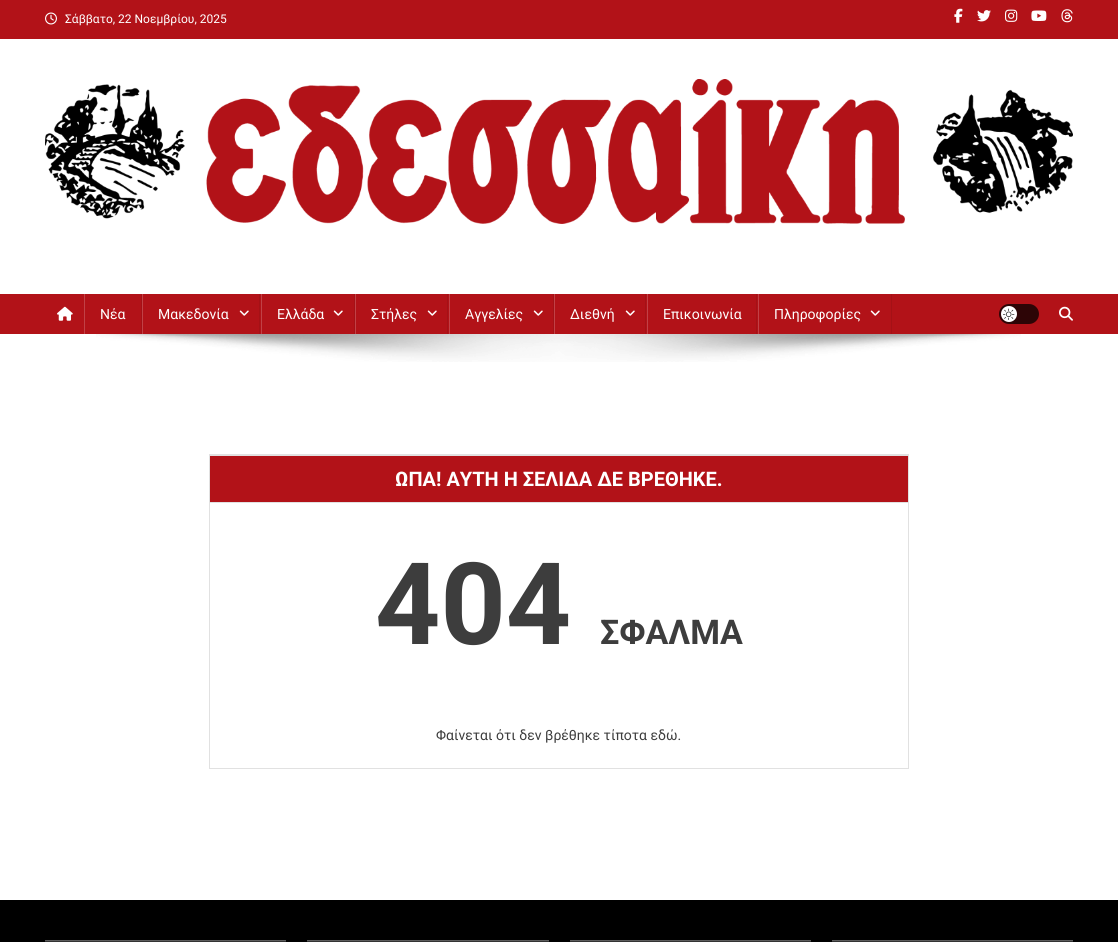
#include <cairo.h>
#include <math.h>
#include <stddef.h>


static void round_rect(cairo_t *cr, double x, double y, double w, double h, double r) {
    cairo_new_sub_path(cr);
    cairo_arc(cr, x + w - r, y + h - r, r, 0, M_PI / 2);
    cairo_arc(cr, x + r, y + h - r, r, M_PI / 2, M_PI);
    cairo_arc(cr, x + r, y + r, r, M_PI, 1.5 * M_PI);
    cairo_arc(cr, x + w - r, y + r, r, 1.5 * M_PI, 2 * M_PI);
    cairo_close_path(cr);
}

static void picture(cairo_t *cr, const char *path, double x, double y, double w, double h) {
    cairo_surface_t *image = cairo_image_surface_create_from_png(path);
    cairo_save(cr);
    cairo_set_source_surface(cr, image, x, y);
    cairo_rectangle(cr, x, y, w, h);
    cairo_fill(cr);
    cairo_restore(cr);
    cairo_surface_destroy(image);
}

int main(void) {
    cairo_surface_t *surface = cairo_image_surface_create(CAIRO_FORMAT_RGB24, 1118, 942);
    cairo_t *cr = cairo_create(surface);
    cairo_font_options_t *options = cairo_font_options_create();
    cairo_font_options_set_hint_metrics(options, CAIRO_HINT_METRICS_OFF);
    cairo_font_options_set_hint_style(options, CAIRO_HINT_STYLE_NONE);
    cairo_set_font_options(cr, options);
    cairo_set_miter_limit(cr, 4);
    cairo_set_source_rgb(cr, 1, 1, 1);
    cairo_paint(cr);
    cairo_set_source_rgb(cr, 0.698, 0.071, 0.094);
    cairo_rectangle(cr, 0, 0, 1118, 39);
    cairo_fill(cr);
    picture(cr, "img1.png", 45, 12, 12, 13);
    cairo_select_font_face(cr, "Roboto", CAIRO_FONT_SLANT_NORMAL, CAIRO_FONT_WEIGHT_NORMAL);
    cairo_set_font_size(cr, 12);
    cairo_set_source_rgb(cr, 1, 1, 1);
    cairo_move_to(cr, 65, 23);
    cairo_show_text(cr, "Σάββατο, 22 Νοεμβρίου, 2025");
    picture(cr, "img2.png", 954, 8, 9, 15);
    picture(cr, "img3.png", 977, 10, 14, 12);
    picture(cr, "img4.png", 1005, 9, 13, 13);
    picture(cr, "img5.png", 1031, 10, 16, 11);
    picture(cr, "img6.png", 1061, 9, 12, 14);
    picture(cr, "img7.png", 45, 79, 1028, 145);
    cairo_set_source_rgb(cr, 0.698, 0.071, 0.094);
    cairo_rectangle(cr, 0, 294, 1118, 40);
    cairo_fill(cr);
    picture(cr, "img8.png", 57, 306, 16, 15);
    cairo_set_source_rgb(cr, 0.643, 0.067, 0.086);
    cairo_rectangle(cr, 141, 294, 1, 40);
    cairo_fill(cr);
    cairo_set_source_rgb(cr, 0.757, 0.255, 0.275);
    cairo_rectangle(cr, 84, 294, 1, 40);
    cairo_fill(cr);
    cairo_set_font_size(cr, 14);
    cairo_set_source_rgb(cr, 1, 1, 1);
    cairo_move_to(cr, 100, 319);
    cairo_show_text(cr, "Νέα");
    cairo_set_source_rgb(cr, 0.643, 0.067, 0.086);
    cairo_rectangle(cr, 259, 294, 1, 40);
    cairo_fill(cr);
    cairo_set_source_rgb(cr, 0.757, 0.255, 0.275);
    cairo_rectangle(cr, 142, 294, 1, 40);
    cairo_fill(cr);
    cairo_set_source_rgb(cr, 1, 1, 1);
    cairo_move_to(cr, 158, 319);
    cairo_show_text(cr, "Μακεδονία");
    picture(cr, "img9.png", 239, 310, 10, 6);
    cairo_set_source_rgb(cr, 0.643, 0.067, 0.086);
    cairo_rectangle(cr, 354, 294, 1, 40);
    cairo_fill(cr);
    cairo_set_source_rgb(cr, 0.757, 0.255, 0.275);
    cairo_rectangle(cr, 261, 294, 1, 40);
    cairo_fill(cr);
    cairo_set_source_rgb(cr, 1, 1, 1);
    cairo_move_to(cr, 277, 319);
    cairo_show_text(cr, "Ελλάδα");
    picture(cr, "img9.png", 333, 310, 10, 6);
    cairo_set_source_rgb(cr, 0.643, 0.067, 0.086);
    cairo_rectangle(cr, 447, 294, 1, 40);
    cairo_fill(cr);
    cairo_set_source_rgb(cr, 0.757, 0.255, 0.275);
    cairo_rectangle(cr, 355, 294, 1, 40);
    cairo_fill(cr);
    cairo_set_source_rgb(cr, 1, 1, 1);
    cairo_move_to(cr, 371, 319);
    cairo_show_text(cr, "Στήλες");
    picture(cr, "img9.png", 427, 310, 10, 6);
    cairo_set_source_rgb(cr, 0.643, 0.067, 0.086);
    cairo_rectangle(cr, 553, 294, 1, 40);
    cairo_fill(cr);
    cairo_set_source_rgb(cr, 0.757, 0.255, 0.275);
    cairo_rectangle(cr, 449, 294, 1, 40);
    cairo_fill(cr);
    cairo_set_source_rgb(cr, 1, 1, 1);
    cairo_move_to(cr, 465, 319);
    cairo_show_text(cr, "Αγγελίες");
    picture(cr, "img9.png", 533, 310, 10, 6);
    cairo_set_source_rgb(cr, 0.643, 0.067, 0.086);
    cairo_rectangle(cr, 645, 294, 1, 40);
    cairo_fill(cr);
    cairo_set_source_rgb(cr, 0.757, 0.255, 0.275);
    cairo_rectangle(cr, 554, 294, 1, 40);
    cairo_fill(cr);
    cairo_set_source_rgb(cr, 1, 1, 1);
    cairo_move_to(cr, 570, 319);
    cairo_show_text(cr, "Διεθνή");
    picture(cr, "img9.png", 625, 310, 10, 6);
    cairo_set_source_rgb(cr, 0.643, 0.067, 0.086);
    cairo_rectangle(cr, 756, 294, 1, 40);
    cairo_fill(cr);
    cairo_set_source_rgb(cr, 0.757, 0.255, 0.275);
    cairo_rectangle(cr, 647, 294, 1, 40);
    cairo_fill(cr);
    cairo_set_source_rgb(cr, 1, 1, 1);
    cairo_move_to(cr, 663, 319);
    cairo_show_text(cr, "Επικοινωνία");
    cairo_set_source_rgb(cr, 0.643, 0.067, 0.086);
    cairo_rectangle(cr, 891, 294, 1, 40);
    cairo_fill(cr);
    cairo_set_source_rgb(cr, 0.757, 0.255, 0.275);
    cairo_rectangle(cr, 758, 294, 1, 40);
    cairo_fill(cr);
    cairo_set_source_rgb(cr, 1, 1, 1);
    cairo_move_to(cr, 774, 319);
    cairo_show_text(cr, "Πληροφορίες");
    picture(cr, "img9.png", 870, 310, 10, 6);
    cairo_set_source_rgb(cr, 0.176, 0.02, 0.024);
    round_rect(cr, 999, 304, 40, 20, 10);
    cairo_fill(cr);
    cairo_set_source_rgb(cr, 1, 1, 1);
    cairo_arc(cr, 1009, 314, 8, 0, 2 * M_PI);
    cairo_fill(cr);
    picture(cr, "img10.png", 1003, 308, 12, 12);
    picture(cr, "img11.png", 1059, 306, 14, 15);
    picture(cr, "img12.png", 96, 334, 925, 28);
    cairo_rectangle(cr, 209.5, 454.5, 699, 314);
    cairo_set_source_rgb(cr, 0.882, 0.882, 0.882);
    cairo_set_line_width(cr, 1);
    cairo_stroke(cr);
    cairo_set_source_rgb(cr, 0.698, 0.071, 0.094);
    cairo_rectangle(cr, 210, 456, 698, 46);
    cairo_fill(cr);
    cairo_set_source_rgb(cr, 0.882, 0.882, 0.882);
    cairo_rectangle(cr, 210, 455, 698, 1);
    cairo_fill(cr);
    cairo_rectangle(cr, 210, 502, 698, 1);
    cairo_fill(cr);
    cairo_select_font_face(cr, "Roboto", CAIRO_FONT_SLANT_NORMAL, CAIRO_FONT_WEIGHT_BOLD);
    cairo_set_font_size(cr, 20);
    cairo_set_source_rgb(cr, 1, 1, 1);
    cairo_move_to(cr, 395, 486);
    cairo_show_text(cr, "ΩΠΑ! ΑΥΤΗ Η ΣΕΛΙΔΑ ΔΕ ΒΡΕΘΗΚΕ.");
    cairo_set_font_size(cr, 114);
    cairo_set_source_rgb(cr, 0.239, 0.239, 0.239);
    cairo_move_to(cr, 375, 644);
    cairo_show_text(cr, "404");
    cairo_set_font_size(cr, 34);
    cairo_move_to(cr, 600, 644);
    cairo_show_text(cr, "ΣΦΑΛΜΑ");
    cairo_select_font_face(cr, "Roboto", CAIRO_FONT_SLANT_NORMAL, CAIRO_FONT_WEIGHT_NORMAL);
    cairo_set_font_size(cr, 14);
    cairo_move_to(cr, 436, 740);
    cairo_show_text(cr, "Φαίνεται ότι δεν βρέθηκε τίποτα εδώ.");
    cairo_set_source_rgb(cr, 0, 0, 0);
    cairo_rectangle(cr, 0, 900, 1118, 42);
    cairo_fill(cr);
    cairo_set_source_rgb(cr, 0.2, 0.2, 0.2);
    cairo_rectangle(cr, 45, 941, 241, 1);
    cairo_fill(cr);
    cairo_set_source_rgb(cr, 0.361, 0.361, 0.361);
    cairo_rectangle(cr, 45, 940, 241, 1);
    cairo_fill(cr);
    cairo_set_source_rgb(cr, 0.2, 0.2, 0.2);
    cairo_rectangle(cr, 307, 941, 242, 1);
    cairo_fill(cr);
    cairo_set_source_rgb(cr, 0.361, 0.361, 0.361);
    cairo_rectangle(cr, 307, 940, 242, 1);
    cairo_fill(cr);
    cairo_set_source_rgb(cr, 0.2, 0.2, 0.2);
    cairo_rectangle(cr, 570, 941, 241, 1);
    cairo_fill(cr);
    cairo_set_source_rgb(cr, 0.361, 0.361, 0.361);
    cairo_rectangle(cr, 570, 940, 241, 1);
    cairo_fill(cr);
    cairo_set_source_rgb(cr, 0.2, 0.2, 0.2);
    cairo_rectangle(cr, 832, 941, 241, 1);
    cairo_fill(cr);
    cairo_set_source_rgb(cr, 0.361, 0.361, 0.361);
    cairo_rectangle(cr, 832, 940, 241, 1);
    cairo_fill(cr);
    cairo_surface_write_to_png(surface, "page.png");
    cairo_font_options_destroy(options);
    cairo_destroy(cr);
    cairo_surface_destroy(surface);
    return 0;
}
